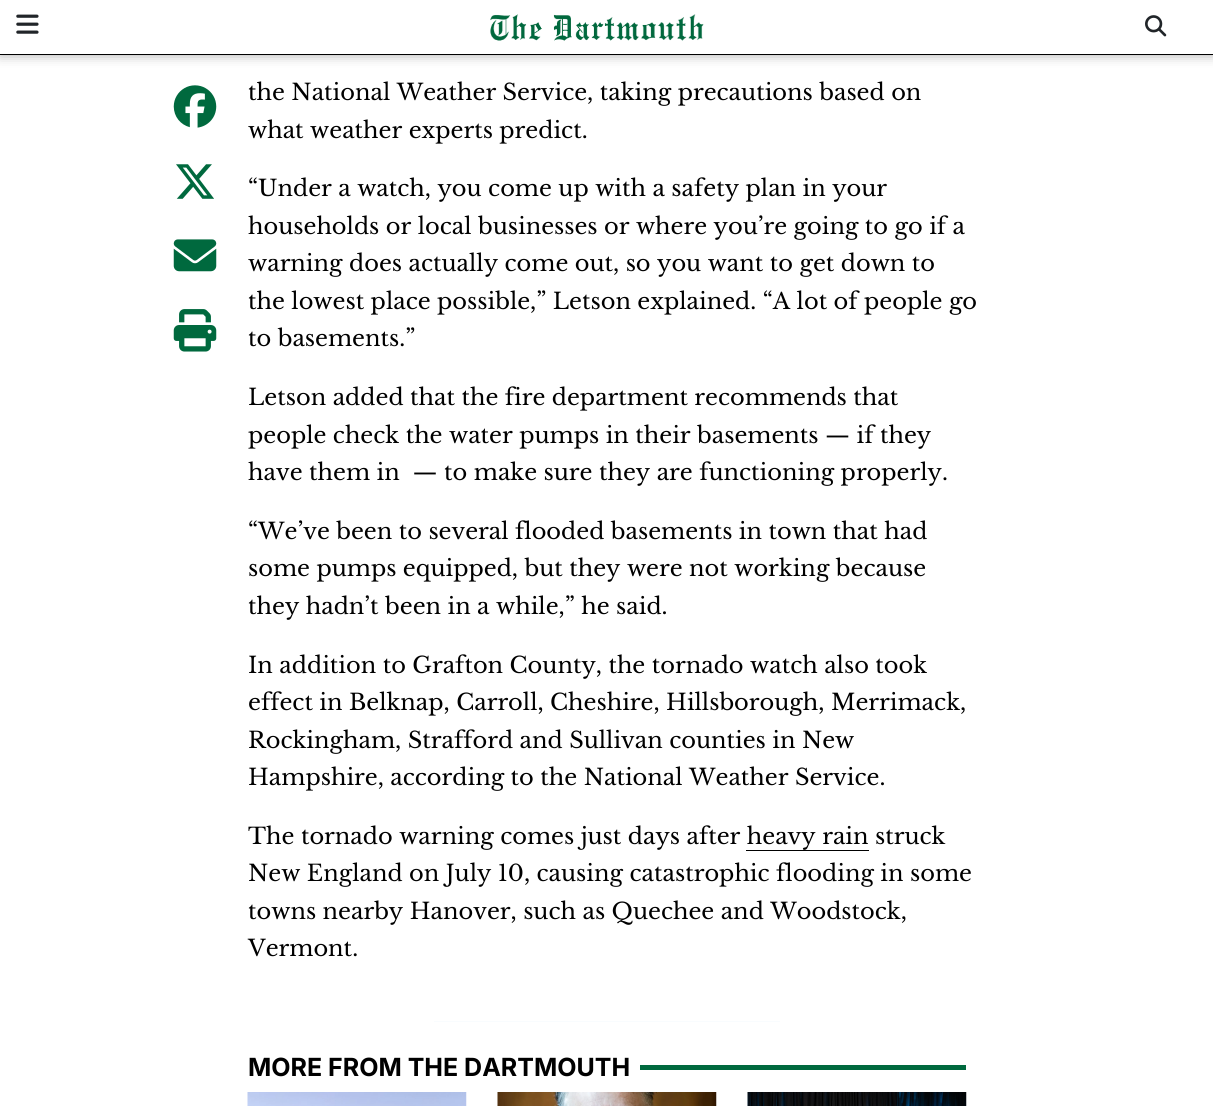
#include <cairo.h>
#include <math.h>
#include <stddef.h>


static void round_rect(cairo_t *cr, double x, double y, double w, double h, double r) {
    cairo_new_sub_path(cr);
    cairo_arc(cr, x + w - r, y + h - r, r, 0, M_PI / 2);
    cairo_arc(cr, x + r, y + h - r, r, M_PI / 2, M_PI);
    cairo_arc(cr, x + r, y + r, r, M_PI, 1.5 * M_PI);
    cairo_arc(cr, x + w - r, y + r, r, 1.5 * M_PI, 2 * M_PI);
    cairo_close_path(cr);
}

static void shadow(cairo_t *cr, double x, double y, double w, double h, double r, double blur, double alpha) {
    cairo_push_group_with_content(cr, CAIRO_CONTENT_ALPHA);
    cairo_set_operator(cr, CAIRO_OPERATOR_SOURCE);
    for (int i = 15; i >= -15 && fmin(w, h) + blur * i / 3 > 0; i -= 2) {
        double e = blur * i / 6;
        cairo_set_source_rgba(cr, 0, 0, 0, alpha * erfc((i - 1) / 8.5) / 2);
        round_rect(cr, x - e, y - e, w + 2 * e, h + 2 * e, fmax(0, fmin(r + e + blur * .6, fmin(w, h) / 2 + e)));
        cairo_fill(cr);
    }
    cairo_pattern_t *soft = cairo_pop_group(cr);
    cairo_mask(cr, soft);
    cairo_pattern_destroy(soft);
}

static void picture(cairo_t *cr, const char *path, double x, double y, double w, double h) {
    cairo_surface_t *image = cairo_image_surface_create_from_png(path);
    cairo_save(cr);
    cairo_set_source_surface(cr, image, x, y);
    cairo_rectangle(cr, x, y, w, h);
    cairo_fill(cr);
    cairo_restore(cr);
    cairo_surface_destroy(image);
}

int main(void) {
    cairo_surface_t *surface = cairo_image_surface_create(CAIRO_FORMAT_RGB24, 1213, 1106);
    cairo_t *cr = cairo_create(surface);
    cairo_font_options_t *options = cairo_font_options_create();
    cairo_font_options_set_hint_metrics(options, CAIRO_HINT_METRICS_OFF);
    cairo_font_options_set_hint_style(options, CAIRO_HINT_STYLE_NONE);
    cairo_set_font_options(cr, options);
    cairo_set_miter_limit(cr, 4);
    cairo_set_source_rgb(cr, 1, 1, 1);
    cairo_paint(cr);
    cairo_set_source_rgb(cr, 0, 0, 0);
    shadow(cr, 0, 0, 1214, 55, 0, 6, 0.33);
    cairo_set_source_rgb(cr, 1, 1, 1);
    cairo_rectangle(cr, 0, 0, 1213, 54);
    cairo_fill(cr);
    cairo_set_source_rgb(cr, 0, 0, 0);
    cairo_rectangle(cr, 0, 54, 1213, 1);
    cairo_fill(cr);
    picture(cr, "img1.png", 16, 14, 23, 20);
    picture(cr, "img2.png", 490, 14, 214, 27);
    picture(cr, "img3.png", 1145, 15, 22, 22);
    picture(cr, "img4.png", 173, 85, 44, 43);
    picture(cr, "img5.png", 176, 164, 38, 35);
    picture(cr, "img6.png", 173, 239, 44, 33);
    picture(cr, "img7.png", 173, 309, 44, 43);
    cairo_select_font_face(cr, "Libre Baskerville", CAIRO_FONT_SLANT_NORMAL, CAIRO_FONT_WEIGHT_NORMAL);
    cairo_set_font_size(cr, 22.5);
    cairo_move_to(cr, 248, 100);
    cairo_show_text(cr, "the National Weather Service, taking precautions based on");
    cairo_move_to(cr, 248, 138);
    cairo_show_text(cr, "what weather experts predict.");
    cairo_move_to(cr, 248, 196);
    cairo_show_text(cr, "“Under a watch, you come up with a safety plan in your");
    cairo_move_to(cr, 248, 234);
    cairo_show_text(cr, "households or local businesses or where you’re going to go if a");
    cairo_move_to(cr, 248, 271);
    cairo_show_text(cr, "warning does actually come out, so you want to get down to");
    cairo_move_to(cr, 248, 309);
    cairo_show_text(cr, "the lowest place possible,” Letson explained. “A lot of people go");
    cairo_move_to(cr, 248, 346);
    cairo_show_text(cr, "to basements.”");
    cairo_move_to(cr, 248, 405);
    cairo_show_text(cr, "Letson added that the fire department recommends that");
    cairo_move_to(cr, 248, 443);
    cairo_show_text(cr, "people check the water pumps in their basements — if they");
    cairo_move_to(cr, 248, 480);
    cairo_show_text(cr, "have them in  — to make sure they are functioning properly.");
    cairo_move_to(cr, 248, 539);
    cairo_show_text(cr, "“We’ve been to several flooded basements in town that had");
    cairo_move_to(cr, 248, 576);
    cairo_show_text(cr, "some pumps equipped, but they were not working because");
    cairo_move_to(cr, 248, 614);
    cairo_show_text(cr, "they hadn’t been in a while,” he said.");
    cairo_move_to(cr, 248, 673);
    cairo_show_text(cr, "In addition to Grafton County, the tornado watch also took");
    cairo_move_to(cr, 248, 710);
    cairo_show_text(cr, "effect in Belknap, Carroll, Cheshire, Hillsborough, Merrimack,");
    cairo_move_to(cr, 248, 748);
    cairo_show_text(cr, "Rockingham, Strafford and Sullivan counties in New");
    cairo_move_to(cr, 248, 785);
    cairo_show_text(cr, "Hampshire, according to the National Weather Service.");
    cairo_move_to(cr, 248, 844);
    cairo_show_text(cr, "The tornado warning comes just days after heavy rain struck");
    cairo_rectangle(cr, 746, 850, 123, 1);
    cairo_fill(cr);
    cairo_move_to(cr, 248, 881);
    cairo_show_text(cr, "New England on July 10, causing catastrophic flooding in some");
    cairo_move_to(cr, 248, 919);
    cairo_show_text(cr, "towns nearby Hanover, such as Quechee and Woodstock,");
    cairo_move_to(cr, 248, 956);
    cairo_show_text(cr, "Vermont.");
    cairo_set_source_rgb(cr, 0.976, 0.988, 0.996);
    cairo_rectangle(cr, 434, 1021, 346, 1);
    cairo_fill(cr);
    cairo_select_font_face(cr, "Inter", CAIRO_FONT_SLANT_NORMAL, CAIRO_FONT_WEIGHT_BOLD);
    cairo_set_font_size(cr, 25);
    cairo_set_source_rgb(cr, 0, 0, 0);
    cairo_move_to(cr, 248, 1076);
    cairo_show_text(cr, "MORE FROM THE DARTMOUTH");
    cairo_set_source_rgb(cr, 0, 0.412, 0.243);
    cairo_rectangle(cr, 640, 1065, 326, 5);
    cairo_fill(cr);
    picture(cr, "img8.png", 247, 1092, 220, 14);
    picture(cr, "img9.png", 497, 1092, 220, 14);
    picture(cr, "img10.png", 747, 1092, 220, 14);
    cairo_surface_write_to_png(surface, "page.png");
    cairo_font_options_destroy(options);
    cairo_destroy(cr);
    cairo_surface_destroy(surface);
    return 0;
}
